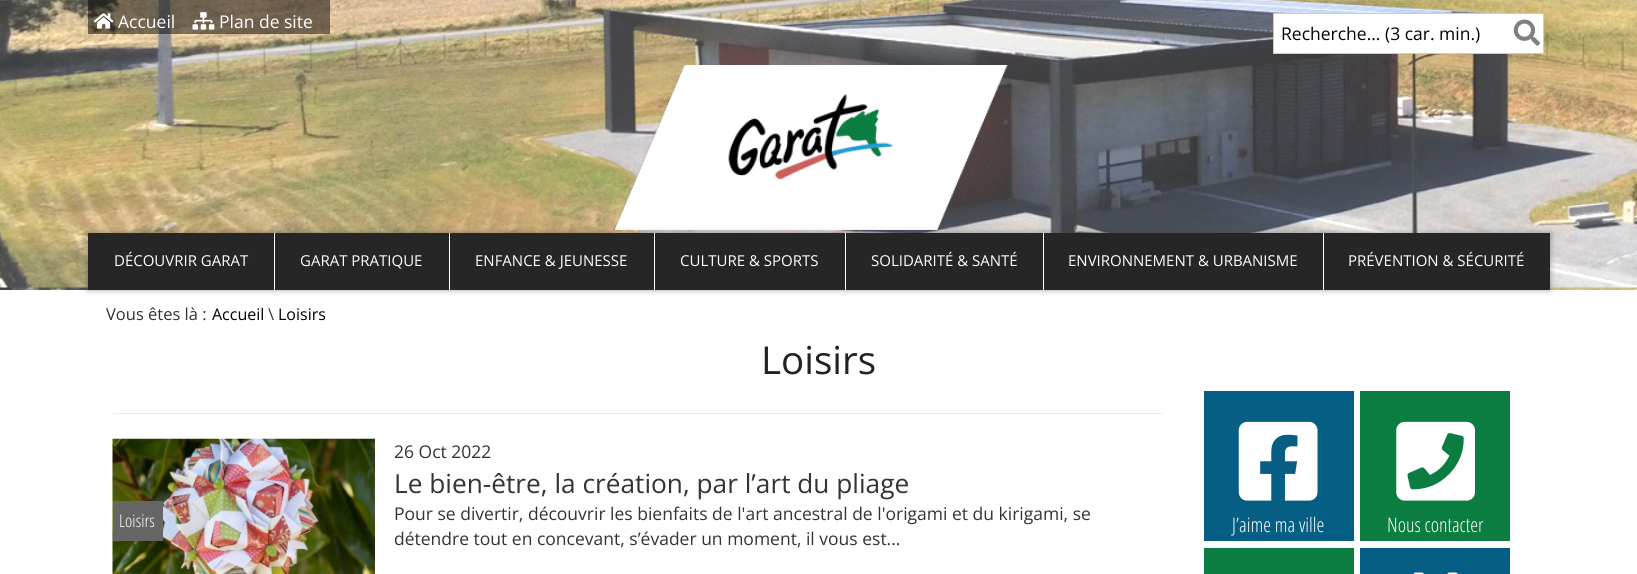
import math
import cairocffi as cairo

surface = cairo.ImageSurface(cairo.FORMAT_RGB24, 1637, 574)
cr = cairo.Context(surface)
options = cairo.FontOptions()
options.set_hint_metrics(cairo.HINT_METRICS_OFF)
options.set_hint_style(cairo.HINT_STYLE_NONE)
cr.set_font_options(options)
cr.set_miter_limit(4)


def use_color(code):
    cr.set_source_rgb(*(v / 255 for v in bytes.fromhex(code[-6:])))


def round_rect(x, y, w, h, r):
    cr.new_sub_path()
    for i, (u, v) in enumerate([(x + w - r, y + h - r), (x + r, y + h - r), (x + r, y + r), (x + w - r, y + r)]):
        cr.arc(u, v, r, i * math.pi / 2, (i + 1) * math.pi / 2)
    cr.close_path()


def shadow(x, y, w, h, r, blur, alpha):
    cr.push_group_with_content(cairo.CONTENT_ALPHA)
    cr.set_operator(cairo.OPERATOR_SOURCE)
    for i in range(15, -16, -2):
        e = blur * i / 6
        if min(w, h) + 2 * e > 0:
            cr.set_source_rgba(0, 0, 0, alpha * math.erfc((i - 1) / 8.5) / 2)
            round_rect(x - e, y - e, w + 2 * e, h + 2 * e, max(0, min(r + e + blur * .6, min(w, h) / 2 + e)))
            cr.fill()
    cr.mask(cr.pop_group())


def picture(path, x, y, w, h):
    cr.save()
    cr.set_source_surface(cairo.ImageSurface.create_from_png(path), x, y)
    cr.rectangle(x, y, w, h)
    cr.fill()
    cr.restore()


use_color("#ffffff")
cr.paint()
picture("img1.png", 0, 0, 1637, 290)
cr.set_source_rgba(0, 0, 0, 0.5)
cr.rectangle(88, 0, 242, 34)
cr.fill()
picture("img2.png", 93, 13, 21, 16)
cr.select_font_face("Open Sans")
cr.set_font_size(17.5)
use_color("#ffffff")
cr.move_to(118, 28)
cr.show_text("Accueil")
picture("img3.png", 192, 12, 23, 18)
cr.move_to(219, 28)
cr.show_text("Plan de site")
cr.rectangle(1273.5, 13.5, 270, 40)
cr.fill_preserve()
use_color("#cccccc")
cr.set_line_width(1)
cr.stroke()
use_color("#000000")
cr.move_to(1281, 40)
cr.show_text("Recherche... (3 car. min.)")
picture("img4.png", 1513, 19, 27, 27)
picture("img5.png", 613, 65, 395, 165)
use_color("#444444")
shadow(88, 233, 1462, 57, 0, 3, 0.5)
use_color("#262626")
cr.rectangle(88, 233, 1462, 57)
cr.fill()
cr.set_font_size(15)
use_color("#ffffff")
cr.move_to(114, 266)
cr.show_text("DÉCOUVRIR GARAT")
cr.rectangle(274, 233, 1, 57)
cr.fill()
cr.move_to(300, 266)
cr.show_text("GARAT PRATIQUE")
cr.rectangle(449, 233, 1, 57)
cr.fill()
cr.move_to(475, 266)
cr.show_text("ENFANCE & JEUNESSE")
cr.rectangle(654, 233, 1, 57)
cr.fill()
cr.move_to(680, 266)
cr.show_text("CULTURE & SPORTS")
cr.rectangle(845, 233, 1, 57)
cr.fill()
cr.move_to(871, 266)
cr.show_text("SOLIDARITÉ & SANTÉ")
cr.rectangle(1043, 233, 1, 57)
cr.fill()
cr.move_to(1068, 266)
cr.show_text("ENVIRONNEMENT & URBANISME")
cr.rectangle(1323, 233, 1, 57)
cr.fill()
cr.move_to(1348, 266)
cr.show_text("PRÉVENTION & SÉCURITÉ")
cr.set_font_size(16.5)
use_color("#333333")
cr.move_to(106, 320)
cr.show_text("Vous êtes là :")
cr.set_font_size(16)
use_color("#000000")
cr.move_to(212, 320)
cr.show_text("Accueil")
cr.set_font_size(16.5)
use_color("#333333")
cr.move_to(268, 320)
cr.show_text("\\")
cr.set_font_size(16)
use_color("#000000")
cr.move_to(278, 320)
cr.show_text("Loisirs")
cr.set_font_size(38.5)
use_color("#222222")
cr.move_to(761, 374)
cr.show_text("Loisirs")
use_color("#eeeeee")
cr.rectangle(113, 413, 1050, 1)
cr.fill()
picture("img6.png", 112, 438, 263, 136)
use_color("#666666")
cr.rectangle(113, 501, 50, 40)
cr.fill()
cr.select_font_face("Open Sans Condensed Light")
cr.set_font_size(17.5)
use_color("#ffffff")
cr.move_to(119, 527)
cr.show_text("Loisirs")
cr.select_font_face("Open Sans")
use_color("#333333")
cr.move_to(394, 458)
cr.show_text("26 Oct 2022")
cr.set_font_size(26.25)
cr.move_to(394, 493)
cr.show_text("Le bien-être, la création, par l’art du pliage")
cr.set_font_size(17.5)
cr.move_to(394, 520)
cr.show_text("Pour se divertir, découvrir les bienfaits de l'art ancestral de l'origami et du kirigami, se")
cr.move_to(394, 545)
cr.show_text("détendre tout en concevant, s’évader un moment, il vous est...")
use_color("#065e84")
cr.rectangle(1204, 391, 150, 150)
cr.fill()
picture("img7.png", 1238, 421, 80, 80)
cr.select_font_face("Open Sans Condensed Light")
cr.set_font_size(20)
use_color("#ffffff")
cr.move_to(1232, 532)
cr.show_text("J’aime ma ville")
use_color("#0b7d41")
cr.rectangle(1360, 391, 150, 150)
cr.fill()
picture("img8.png", 1396, 421, 79, 80)
use_color("#ffffff")
cr.move_to(1387, 532)
cr.show_text("Nous contacter")
use_color("#0b7d41")
cr.rectangle(1204, 548, 150, 26)
cr.fill()
use_color("#065e84")
cr.rectangle(1360, 548, 150, 26)
cr.fill()
picture("img9.png", 1413, 572, 45, 2)
surface.write_to_png("result.png")
